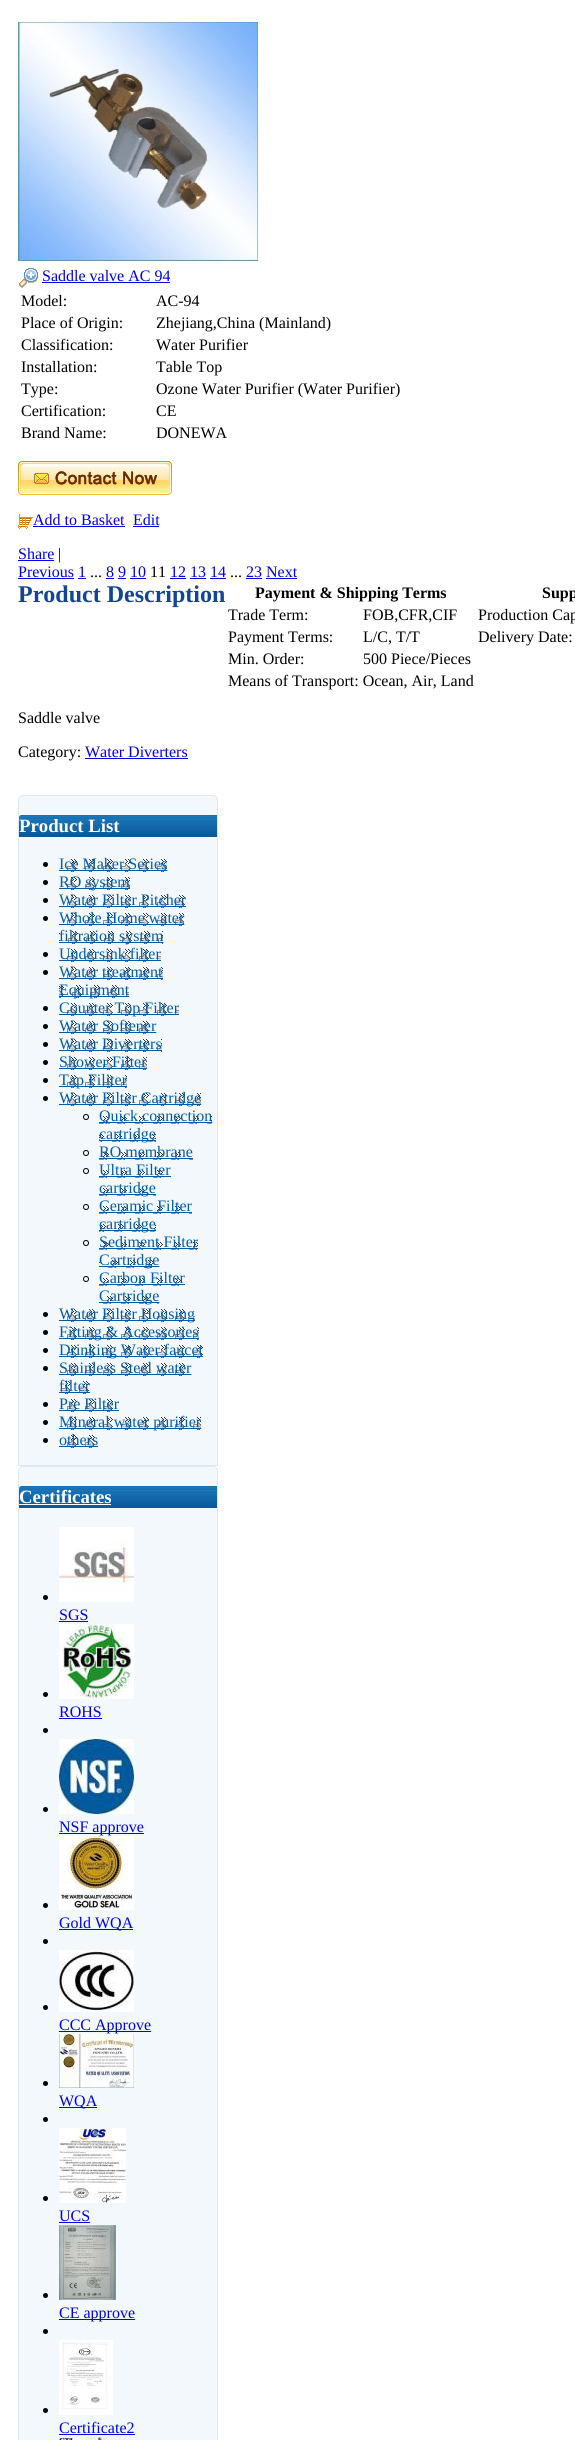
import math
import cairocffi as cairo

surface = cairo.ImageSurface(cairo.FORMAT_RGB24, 575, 2440)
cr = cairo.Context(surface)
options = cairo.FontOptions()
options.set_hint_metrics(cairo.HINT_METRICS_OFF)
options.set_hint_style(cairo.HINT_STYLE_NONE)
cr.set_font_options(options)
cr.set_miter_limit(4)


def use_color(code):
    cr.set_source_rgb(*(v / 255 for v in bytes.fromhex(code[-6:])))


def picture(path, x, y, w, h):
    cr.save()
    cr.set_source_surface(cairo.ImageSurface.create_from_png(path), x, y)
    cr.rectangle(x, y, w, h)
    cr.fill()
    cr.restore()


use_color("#ffffff")
cr.paint()
picture("img1.png", 18, 22, 240, 239)
picture("img2.png", 19, 268, 19, 20)
cr.select_font_face("Liberation Serif")
cr.set_font_size(16)
use_color("#0000ee")
cr.move_to(42, 281)
cr.show_text("Saddle valve AC 94")
cr.rectangle(42, 282, 128, 1)
cr.fill()
use_color("#000000")
cr.move_to(21, 306)
cr.show_text("Model:")
cr.move_to(156, 306)
cr.show_text("AC-94")
cr.move_to(21, 328)
cr.show_text("Place of Origin:")
cr.move_to(156, 328)
cr.show_text("Zhejiang,China (Mainland)")
cr.move_to(21, 350)
cr.show_text("Classification:")
cr.move_to(156, 350)
cr.show_text("Water Purifier")
cr.move_to(21, 372)
cr.show_text("Installation:")
cr.move_to(156, 372)
cr.show_text("Table Top")
cr.move_to(21, 394)
cr.show_text("Type:")
cr.move_to(156, 394)
cr.show_text("Ozone Water Purifier (Water Purifier)")
cr.move_to(21, 416)
cr.show_text("Certification:")
cr.move_to(156, 416)
cr.show_text("CE")
cr.move_to(21, 438)
cr.show_text("Brand Name:")
cr.move_to(156, 438)
cr.show_text("DONEWA")
picture("img3.png", 18, 461, 154, 34)
picture("img4.png", 18, 514, 15, 15)
use_color("#0000ee")
cr.move_to(33, 525)
cr.show_text("Add to Basket")
cr.rectangle(33, 526, 92, 1)
cr.fill()
cr.move_to(133, 525)
cr.show_text("Edit")
cr.rectangle(133, 526, 26, 1)
cr.fill()
cr.move_to(18, 559)
cr.show_text("Share")
cr.rectangle(18, 560, 36, 1)
cr.fill()
use_color("#000000")
cr.move_to(58, 559)
cr.show_text("|")
use_color("#0000ee")
cr.move_to(18, 577)
cr.show_text("Previous 1")
cr.rectangle(18, 578, 56, 1)
cr.fill()
use_color("#000000")
cr.move_to(90, 577)
cr.show_text("...")
use_color("#0000ee")
cr.move_to(106, 577)
cr.show_text("8 9 10")
cr.rectangle(106, 578, 8, 1)
cr.fill()
use_color("#000000")
cr.move_to(150, 577)
cr.show_text("11")
use_color("#0000ee")
cr.move_to(170, 577)
cr.show_text("12 13 14")
cr.rectangle(170, 578, 16, 1)
cr.fill()
use_color("#000000")
cr.move_to(230, 577)
cr.show_text("...")
use_color("#0000ee")
cr.move_to(246, 577)
cr.show_text("23 Next")
cr.rectangle(246, 578, 16, 1)
cr.fill()
cr.rectangle(78, 578, 8, 1)
cr.fill()
cr.rectangle(118, 578, 8, 1)
cr.fill()
cr.rectangle(130, 578, 16, 1)
cr.fill()
cr.rectangle(190, 578, 16, 1)
cr.fill()
cr.rectangle(210, 578, 16, 1)
cr.fill()
cr.rectangle(266, 578, 31, 1)
cr.fill()
cr.select_font_face("Liberation Serif", cairo.FONT_SLANT_NORMAL, cairo.FONT_WEIGHT_BOLD)
cr.set_font_size(24)
use_color("#134597")
cr.move_to(18, 602)
cr.show_text("Product Description")
cr.set_font_size(16)
use_color("#000000")
cr.move_to(255, 598)
cr.show_text("Payment & Shipping Terms")
cr.move_to(542, 598)
cr.show_text("Supp")
cr.select_font_face("Liberation Serif")
cr.move_to(228, 620)
cr.show_text("Trade Term:")
cr.move_to(363, 620)
cr.show_text("FOB,CFR,CIF")
cr.move_to(478, 620)
cr.show_text("Production Cap")
cr.move_to(228, 642)
cr.show_text("Payment Terms:")
cr.move_to(363, 642)
cr.show_text("L/C, T/T")
cr.move_to(478, 642)
cr.show_text("Delivery Date:")
cr.move_to(228, 664)
cr.show_text("Min. Order:")
cr.move_to(363, 664)
cr.show_text("500 Piece/Pieces")
cr.move_to(228, 686)
cr.show_text("Means of Transport: Ocean, Air, Land")
cr.move_to(18, 723)
cr.show_text("Saddle valve")
cr.move_to(18, 757)
cr.show_text("Category:")
use_color("#0000ee")
cr.move_to(85, 757)
cr.show_text("Water Diverters")
cr.rectangle(85, 758, 103, 1)
cr.fill()
use_color("#f3f8fd")
cr.new_path()
cr.move_to(23, 795.5)
cr.line_to(213, 795.5)
cr.curve_to(215.5, 795.5, 217.5, 797.5, 217.5, 800)
cr.line_to(217.5, 1465.5)
cr.line_to(18.5, 1465.5)
cr.line_to(18.5, 800)
cr.curve_to(18.5, 797.5, 20.5, 795.5, 23, 795.5)
cr.close_path()
cr.fill_preserve()
use_color("#dde9f2")
cr.set_line_width(1)
cr.stroke()
picture("img5.png", 19, 815, 198, 22)
cr.select_font_face("Liberation Serif", cairo.FONT_SLANT_NORMAL, cairo.FONT_WEIGHT_BOLD)
cr.set_font_size(18.75)
use_color("#ffffff")
cr.move_to(19, 832)
cr.show_text("Product List")
picture("img6.png", 59, 859, 109, 13)
cr.select_font_face("Liberation Serif")
cr.set_font_size(16)
use_color("#005caa")
cr.move_to(59, 869)
cr.show_text("Ice Maker Series")
use_color("#000000")
cr.new_path()
cr.arc(45.5, 864.5, 2.5, 0, 2 * math.pi)
cr.fill()
picture("img7.png", 67, 877, 63, 13)
use_color("#005caa")
cr.rectangle(59, 888, 71, 1)
cr.fill()
cr.move_to(59, 887)
cr.show_text("RO system")
use_color("#000000")
cr.new_path()
cr.arc(45.5, 882.5, 2.5, 0, 2 * math.pi)
cr.fill()
picture("img8.png", 59, 895, 128, 13)
use_color("#005caa")
cr.move_to(59, 905)
cr.show_text("Water Filter Pitcher")
use_color("#000000")
cr.new_path()
cr.arc(45.5, 900.5, 2.5, 0, 2 * math.pi)
cr.fill()
picture("img9.png", 59, 913, 126, 31)
use_color("#005caa")
cr.move_to(59, 923)
cr.show_text("Whole Home water")
use_color("#000000")
cr.new_path()
cr.arc(45.5, 918.5, 2.5, 0, 2 * math.pi)
cr.fill()
use_color("#005caa")
cr.rectangle(124, 942, 7, 1)
cr.fill()
cr.move_to(59, 941)
cr.show_text("filtration system")
picture("img10.png", 67, 949, 94, 13)
cr.move_to(59, 959)
cr.show_text("Undersink filter")
cr.rectangle(59, 960, 102, 1)
cr.fill()
use_color("#000000")
cr.arc(45.5, 954.5, 2.5, 0, 2 * math.pi)
cr.fill()
picture("img11.png", 59, 967, 104, 31)
use_color("#005caa")
cr.move_to(59, 977)
cr.show_text("Water treatment")
cr.rectangle(162, 978, 1, 1)
cr.fill()
use_color("#000000")
cr.arc(45.5, 972.5, 2.5, 0, 2 * math.pi)
cr.fill()
use_color("#005caa")
cr.rectangle(73, 996, 20, 1)
cr.fill()
cr.move_to(59, 995)
cr.show_text("Equipment")
picture("img12.png", 67, 1003, 112, 13)
cr.rectangle(59, 1014, 77, 1)
cr.fill()
cr.move_to(59, 1013)
cr.show_text("Counter Top Filter")
use_color("#000000")
cr.new_path()
cr.arc(45.5, 1008.5, 2.5, 0, 2 * math.pi)
cr.fill()
picture("img13.png", 59, 1021, 98, 13)
use_color("#005caa")
cr.move_to(59, 1031)
cr.show_text("Water Softener")
use_color("#000000")
cr.new_path()
cr.arc(45.5, 1026.5, 2.5, 0, 2 * math.pi)
cr.fill()
picture("img14.png", 67, 1039, 95, 13)
use_color("#005caa")
cr.move_to(59, 1049)
cr.show_text("Water Diverters")
cr.rectangle(59, 1050, 103, 1)
cr.fill()
use_color("#000000")
cr.arc(45.5, 1044.5, 2.5, 0, 2 * math.pi)
cr.fill()
picture("img15.png", 67, 1057, 80, 13)
use_color("#005caa")
cr.move_to(59, 1067)
cr.show_text("Shower Filter")
cr.rectangle(59, 1068, 88, 1)
cr.fill()
use_color("#000000")
cr.arc(45.5, 1062.5, 2.5, 0, 2 * math.pi)
cr.fill()
picture("img16.png", 67, 1075, 60, 13)
use_color("#005caa")
cr.rectangle(59, 1086, 68, 1)
cr.fill()
cr.move_to(59, 1085)
cr.show_text("Tap Filiter")
use_color("#000000")
cr.new_path()
cr.arc(45.5, 1080.5, 2.5, 0, 2 * math.pi)
cr.fill()
picture("img17.png", 67, 1093, 135, 13)
use_color("#005caa")
cr.rectangle(59, 1104, 142, 1)
cr.fill()
cr.move_to(59, 1103)
cr.show_text("Water Filter Cartridge")
use_color("#000000")
cr.new_path()
cr.arc(45.5, 1098.5, 2.5, 0, 2 * math.pi)
cr.fill()
cr.arc(86, 1117, 2.5, 0, 2 * math.pi)
cr.stroke()
picture("img18.png", 99, 1116, 114, 26)
use_color("#005caa")
cr.rectangle(99, 1122, 13, 1)
cr.fill()
cr.move_to(99, 1121)
cr.show_text("Quick connection")
cr.rectangle(140, 1140, 16, 1)
cr.fill()
cr.move_to(99, 1139)
cr.show_text("cartridge")
cr.new_path()
cr.arc(86, 1153, 2.5, 0, 2 * math.pi)
use_color("#000000")
cr.stroke()
picture("img19.png", 99, 1152, 94, 8)
use_color("#005caa")
cr.move_to(99, 1157)
cr.show_text("RO membrane")
cr.rectangle(192, 1158, 1, 1)
cr.fill()
cr.arc(86, 1171, 2.5, 0, 2 * math.pi)
use_color("#000000")
cr.stroke()
picture("img20.png", 99, 1170, 64, 26)
use_color("#005caa")
cr.move_to(99, 1175)
cr.show_text("Ultra Filter")
cr.rectangle(163, 1176, 8, 1)
cr.fill()
cr.rectangle(140, 1194, 16, 1)
cr.fill()
cr.move_to(99, 1193)
cr.show_text("cartridge")
cr.new_path()
cr.arc(86, 1207, 2.5, 0, 2 * math.pi)
use_color("#000000")
cr.stroke()
picture("img21.png", 99, 1206, 93, 26)
use_color("#005caa")
cr.move_to(99, 1211)
cr.show_text("Ceramic Filter")
cr.rectangle(191, 1212, 1, 1)
cr.fill()
cr.rectangle(140, 1230, 16, 1)
cr.fill()
cr.move_to(99, 1229)
cr.show_text("cartridge")
cr.new_path()
cr.arc(86, 1243, 2.5, 0, 2 * math.pi)
use_color("#000000")
cr.stroke()
picture("img22.png", 99, 1242, 100, 26)
use_color("#005caa")
cr.move_to(99, 1247)
cr.show_text("Sediment Filter")
cr.rectangle(143, 1266, 16, 1)
cr.fill()
cr.move_to(99, 1265)
cr.show_text("Cartridge")
cr.new_path()
cr.arc(86, 1279, 2.5, 0, 2 * math.pi)
use_color("#000000")
cr.stroke()
picture("img23.png", 99, 1278, 82, 26)
use_color("#005caa")
cr.move_to(99, 1283)
cr.show_text("Carbon Filter")
cr.rectangle(181, 1284, 4, 1)
cr.fill()
cr.rectangle(143, 1302, 16, 1)
cr.fill()
cr.move_to(99, 1301)
cr.show_text("Cartridge")
picture("img24.png", 67, 1309, 128, 13)
cr.rectangle(59, 1320, 136, 1)
cr.fill()
cr.move_to(59, 1319)
cr.show_text("Water Filter Housing")
use_color("#000000")
cr.new_path()
cr.arc(45.5, 1314.5, 2.5, 0, 2 * math.pi)
cr.fill()
picture("img25.png", 67, 1327, 132, 13)
use_color("#005caa")
cr.rectangle(59, 1338, 140, 1)
cr.fill()
cr.move_to(59, 1337)
cr.show_text("Fitting & Accessories")
use_color("#000000")
cr.new_path()
cr.arc(45.5, 1332.5, 2.5, 0, 2 * math.pi)
cr.fill()
picture("img26.png", 67, 1345, 136, 13)
use_color("#005caa")
cr.rectangle(59, 1356, 144, 1)
cr.fill()
cr.move_to(59, 1355)
cr.show_text("Drinking Water faucet")
use_color("#000000")
cr.new_path()
cr.arc(45.5, 1350.5, 2.5, 0, 2 * math.pi)
cr.fill()
picture("img27.png", 59, 1363, 133, 31)
use_color("#005caa")
cr.move_to(59, 1373)
cr.show_text("Stainless Steel water")
use_color("#000000")
cr.new_path()
cr.arc(45.5, 1368.5, 2.5, 0, 2 * math.pi)
cr.fill()
use_color("#005caa")
cr.move_to(59, 1391)
cr.show_text("filter")
picture("img28.png", 59, 1399, 60, 13)
cr.move_to(59, 1409)
cr.show_text("Pre Filter")
use_color("#000000")
cr.new_path()
cr.arc(45.5, 1404.5, 2.5, 0, 2 * math.pi)
cr.fill()
picture("img29.png", 67, 1417, 135, 13)
use_color("#005caa")
cr.rectangle(59, 1428, 98, 1)
cr.fill()
cr.move_to(59, 1427)
cr.show_text("Mineral water purifier")
use_color("#000000")
cr.new_path()
cr.arc(45.5, 1422.5, 2.5, 0, 2 * math.pi)
cr.fill()
picture("img30.png", 59, 1435, 40, 13)
use_color("#005caa")
cr.move_to(59, 1445)
cr.show_text("others")
use_color("#000000")
cr.new_path()
cr.arc(45.5, 1440.5, 2.5, 0, 2 * math.pi)
cr.fill()
use_color("#f3f8fd")
cr.new_path()
cr.move_to(23, 1466.5)
cr.line_to(213, 1466.5)
cr.curve_to(215.5, 1466.5, 217.5, 1468.5, 217.5, 1471)
cr.line_to(217.5, 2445.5)
cr.line_to(18.5, 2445.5)
cr.line_to(18.5, 1471)
cr.curve_to(18.5, 1468.5, 20.5, 1466.5, 23, 1466.5)
cr.close_path()
cr.fill_preserve()
use_color("#dde9f2")
cr.stroke()
picture("img5.png", 19, 1486, 198, 22)
cr.select_font_face("Liberation Serif", cairo.FONT_SLANT_NORMAL, cairo.FONT_WEIGHT_BOLD)
cr.set_font_size(18.75)
use_color("#ffffff")
cr.move_to(19, 1503)
cr.show_text("Certificates")
cr.rectangle(19, 1504, 92, 1)
cr.fill()
use_color("#000000")
cr.arc(45.5, 1597.5, 2.5, 0, 2 * math.pi)
cr.fill()
picture("img31.png", 59, 1527, 75, 75)
cr.select_font_face("Liberation Serif")
cr.set_font_size(16)
use_color("#0000ee")
cr.move_to(59, 1620)
cr.show_text("SGS")
cr.rectangle(59, 1621, 29, 1)
cr.fill()
use_color("#000000")
cr.arc(45.5, 1694.5, 2.5, 0, 2 * math.pi)
cr.fill()
picture("img32.png", 59, 1624, 75, 75)
use_color("#0000ee")
cr.move_to(59, 1717)
cr.show_text("ROHS")
cr.rectangle(59, 1718, 43, 1)
cr.fill()
use_color("#000000")
cr.arc(45.5, 1730.5, 2.5, 0, 2 * math.pi)
cr.fill()
cr.arc(45.5, 1809.5, 2.5, 0, 2 * math.pi)
cr.fill()
picture("img33.png", 59, 1739, 75, 75)
use_color("#0000ee")
cr.rectangle(59, 1833, 85, 1)
cr.fill()
cr.move_to(59, 1832)
cr.show_text("NSF approve")
use_color("#000000")
cr.new_path()
cr.arc(45.5, 1905.5, 2.5, 0, 2 * math.pi)
cr.fill()
picture("img34.png", 59, 1836, 75, 74)
use_color("#0000ee")
cr.rectangle(59, 1929, 74, 1)
cr.fill()
cr.move_to(59, 1928)
cr.show_text("Gold WQA")
use_color("#000000")
cr.new_path()
cr.arc(45.5, 1941.5, 2.5, 0, 2 * math.pi)
cr.fill()
cr.arc(45.5, 2007.5, 2.5, 0, 2 * math.pi)
cr.fill()
picture("img35.png", 59, 1950, 75, 62)
use_color("#0000ee")
cr.rectangle(59, 2031, 92, 1)
cr.fill()
cr.move_to(59, 2030)
cr.show_text("CCC Approve")
use_color("#000000")
cr.new_path()
cr.arc(45.5, 2083.5, 2.5, 0, 2 * math.pi)
cr.fill()
picture("img36.png", 59, 2034, 75, 54)
use_color("#0000ee")
cr.rectangle(59, 2107, 38, 1)
cr.fill()
cr.move_to(59, 2106)
cr.show_text("WQA")
use_color("#000000")
cr.new_path()
cr.arc(45.5, 2119.5, 2.5, 0, 2 * math.pi)
cr.fill()
cr.arc(45.5, 2198.5, 2.5, 0, 2 * math.pi)
cr.fill()
picture("img37.png", 59, 2128, 67, 75)
use_color("#0000ee")
cr.move_to(59, 2221)
cr.show_text("UCS")
cr.rectangle(59, 2222, 31, 1)
cr.fill()
use_color("#000000")
cr.arc(45.5, 2295.5, 2.5, 0, 2 * math.pi)
cr.fill()
picture("img38.png", 59, 2225, 57, 75)
use_color("#0000ee")
cr.rectangle(59, 2319, 76, 1)
cr.fill()
cr.move_to(59, 2318)
cr.show_text("CE approve")
use_color("#000000")
cr.new_path()
cr.arc(45.5, 2331.5, 2.5, 0, 2 * math.pi)
cr.fill()
cr.arc(45.5, 2410.5, 2.5, 0, 2 * math.pi)
cr.fill()
picture("img39.png", 59, 2340, 54, 75)
use_color("#0000ee")
cr.move_to(59, 2433)
cr.show_text("Certificate2")
cr.rectangle(59, 2434, 76, 1)
cr.fill()
picture("img40.png", 59, 2437, 48, 3)
surface.write_to_png("result.png")
